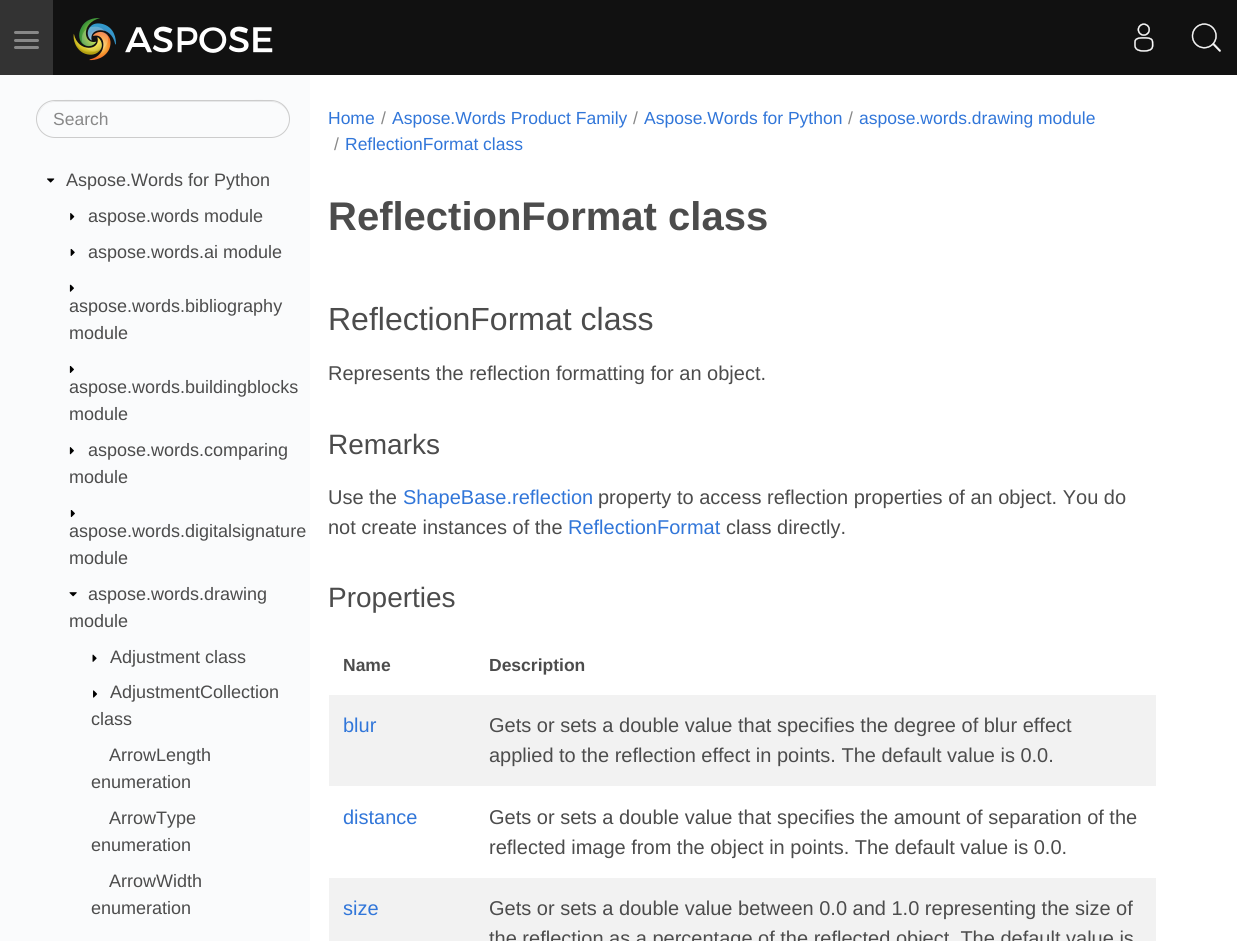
import math
import cairocffi as cairo

surface = cairo.ImageSurface(cairo.FORMAT_RGB24, 1237, 941)
cr = cairo.Context(surface)
options = cairo.FontOptions()
options.set_hint_metrics(cairo.HINT_METRICS_OFF)
options.set_hint_style(cairo.HINT_STYLE_NONE)
cr.set_font_options(options)
cr.set_miter_limit(4)


def use_color(code):
    cr.set_source_rgb(*(v / 255 for v in bytes.fromhex(code[-6:])))


def round_rect(x, y, w, h, r):
    cr.new_sub_path()
    for i, (u, v) in enumerate([(x + w - r, y + h - r), (x + r, y + h - r), (x + r, y + r), (x + w - r, y + r)]):
        cr.arc(u, v, r, i * math.pi / 2, (i + 1) * math.pi / 2)
    cr.close_path()


def picture(path, x, y, w, h):
    cr.save()
    cr.set_source_surface(cairo.ImageSurface.create_from_png(path), x, y)
    cr.rectangle(x, y, w, h)
    cr.fill()
    cr.restore()


use_color("#ffffff")
cr.paint()
use_color("#111111")
cr.rectangle(53, 0, 1184, 75)
cr.fill()
use_color("#333333")
cr.rectangle(0, 0, 53, 75)
cr.fill()
use_color("#888888")
round_rect(14, 31, 25, 3, 1.5)
cr.fill()
round_rect(14, 39, 25, 3, 1.5)
cr.fill()
round_rect(14, 46, 25, 3, 1.5)
cr.fill()
picture("img1.png", 73, 18, 200, 43)
picture("img2.png", 1134, 23, 20, 29)
picture("img3.png", 1191, 23, 30, 29)
use_color("#fafbfc")
cr.rectangle(0, 75, 310, 866)
cr.fill()
use_color("#e7e8e9")
cr.new_path()
cr.move_to(55, 102)
cr.line_to(271, 102)
cr.curve_to(281, 102, 289, 110, 289, 119)
cr.curve_to(290, 93, 247, 101, 236, 101)
cr.line_to(92, 101)
cr.curve_to(80, 101, 37, 93, 38, 119)
cr.curve_to(38, 110, 45, 102, 55, 102)
cr.close_path()
cr.fill()
round_rect(36.5, 100.5, 253, 37, 18.5)
use_color("#cccccc")
cr.set_line_width(1)
cr.stroke()
cr.select_font_face("Liberation Sans")
cr.set_font_size(17.5)
use_color("#888888")
cr.move_to(53, 125)
cr.show_text("Search")
picture("img4.png", 47, 178, 8, 5)
cr.set_font_size(18)
use_color("#4c4c4c")
cr.move_to(66, 186)
cr.show_text("Aspose.Words for Python")
picture("img5.png", 70, 213, 5, 8)
cr.move_to(88, 222)
cr.show_text("aspose.words module")
picture("img6.png", 70, 248, 5, 8)
cr.move_to(88, 258)
cr.show_text("aspose.words.ai module")
picture("img7.png", 69, 284, 5, 8)
cr.move_to(69, 312)
cr.show_text("aspose.words.bibliography")
cr.move_to(69, 339)
cr.show_text("module")
picture("img8.png", 69, 365, 5, 8)
cr.move_to(69, 393)
cr.show_text("aspose.words.buildingblocks")
cr.move_to(69, 420)
cr.show_text("module")
picture("img9.png", 69, 447, 5, 8)
cr.move_to(88, 456)
cr.show_text("aspose.words.comparing")
cr.move_to(69, 483)
cr.show_text("module")
picture("img10.png", 70, 510, 5, 8)
cr.move_to(69, 537)
cr.show_text("aspose.words.digitalsignature")
cr.move_to(69, 564)
cr.show_text("module")
picture("img11.png", 69, 592, 8, 5)
cr.move_to(88, 600)
cr.show_text("aspose.words.drawing")
cr.move_to(69, 627)
cr.show_text("module")
picture("img12.png", 92, 654, 5, 8)
cr.move_to(110, 663)
cr.show_text("Adjustment class")
picture("img13.png", 93, 690, 5, 8)
cr.move_to(110, 698)
cr.show_text("AdjustmentCollection")
cr.move_to(91, 725)
cr.show_text("class")
cr.move_to(109, 761)
cr.show_text("ArrowLength")
cr.move_to(91, 788)
cr.show_text("enumeration")
cr.move_to(109, 824)
cr.show_text("ArrowType")
cr.move_to(91, 851)
cr.show_text("enumeration")
cr.move_to(109, 887)
cr.show_text("ArrowWidth")
cr.move_to(91, 914)
cr.show_text("enumeration")
cr.set_font_size(17.5)
use_color("#3176d9")
cr.move_to(328, 124)
cr.show_text("Home")
use_color("#888888")
cr.move_to(381, 124)
cr.show_text("/")
use_color("#3176d9")
cr.move_to(392, 124)
cr.show_text("Aspose.Words Product Family")
use_color("#888888")
cr.move_to(633, 124)
cr.show_text("/")
use_color("#3176d9")
cr.move_to(644, 124)
cr.show_text("Aspose.Words for Python")
use_color("#888888")
cr.move_to(848, 124)
cr.show_text("/")
use_color("#3176d9")
cr.move_to(859, 124)
cr.show_text("aspose.words.drawing module")
use_color("#888888")
cr.move_to(334, 150)
cr.show_text("/")
use_color("#3176d9")
cr.move_to(345, 150)
cr.show_text("ReflectionFormat class")
cr.select_font_face("Liberation Sans", cairo.FONT_SLANT_NORMAL, cairo.FONT_WEIGHT_BOLD)
cr.set_font_size(40)
use_color("#4c4c4c")
cr.move_to(328, 230)
cr.show_text("ReflectionFormat class")
cr.select_font_face("Liberation Sans")
cr.set_font_size(32)
cr.move_to(328, 330)
cr.show_text("ReflectionFormat class")
cr.set_font_size(20)
cr.move_to(328, 380)
cr.show_text("Represents the reflection formatting for an object.")
cr.set_font_size(28)
cr.move_to(328, 454)
cr.show_text("Remarks")
cr.set_font_size(20)
cr.move_to(328, 504)
cr.show_text("Use the")
use_color("#3176d9")
cr.move_to(403, 504)
cr.show_text("ShapeBase.reflection")
use_color("#4c4c4c")
cr.move_to(598, 504)
cr.show_text("property to access reflection properties of an object. You do")
cr.move_to(328, 534)
cr.show_text("not create instances of the")
use_color("#3176d9")
cr.move_to(568, 534)
cr.show_text("ReflectionFormat")
use_color("#4c4c4c")
cr.move_to(726, 534)
cr.show_text("class directly.")
cr.set_font_size(28)
cr.move_to(328, 607)
cr.show_text("Properties")
cr.select_font_face("Liberation Sans", cairo.FONT_SLANT_NORMAL, cairo.FONT_WEIGHT_BOLD)
cr.set_font_size(17.5)
cr.move_to(343, 671)
cr.show_text("Name")
cr.move_to(489, 671)
cr.show_text("Description")
use_color("#f2f2f2")
cr.rectangle(329, 695, 827, 91)
cr.fill()
cr.select_font_face("Liberation Sans")
cr.set_font_size(20)
use_color("#3176d9")
cr.move_to(343, 732)
cr.show_text("blur")
use_color("#4c4c4c")
cr.move_to(489, 732)
cr.show_text("Gets or sets a double value that specifies the degree of blur effect")
cr.move_to(489, 762)
cr.show_text("applied to the reflection effect in points. The default value is 0.0.")
use_color("#3176d9")
cr.move_to(343, 824)
cr.show_text("distance")
use_color("#4c4c4c")
cr.move_to(489, 824)
cr.show_text("Gets or sets a double value that specifies the amount of separation of the")
cr.move_to(489, 854)
cr.show_text("reflected image from the object in points. The default value is 0.0.")
use_color("#f2f2f2")
cr.rectangle(329, 878, 827, 63)
cr.fill()
use_color("#3176d9")
cr.move_to(343, 915)
cr.show_text("size")
use_color("#4c4c4c")
cr.move_to(489, 915)
cr.show_text("Gets or sets a double value between 0.0 and 1.0 representing the size of")
cr.move_to(489, 945)
cr.show_text("the reflection as a percentage of the reflected object. The default value is")
surface.write_to_png("result.png")
